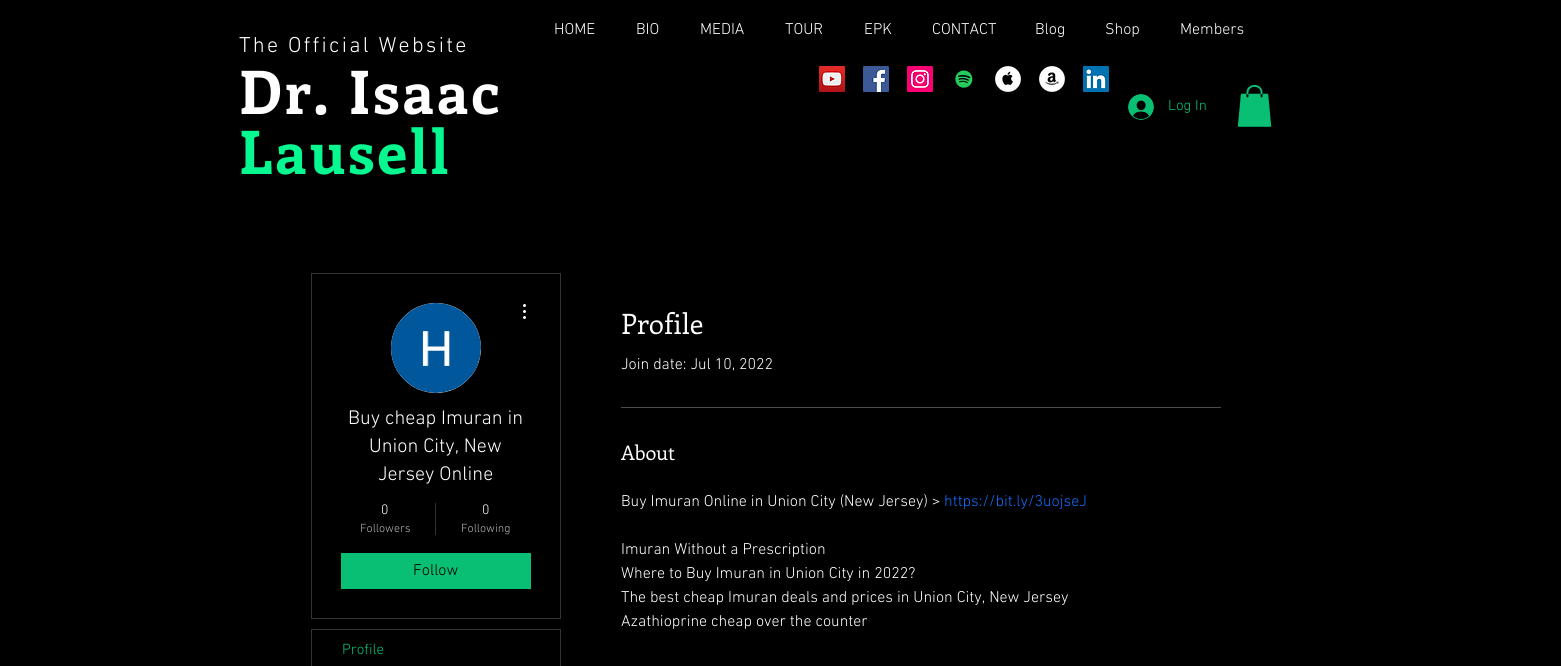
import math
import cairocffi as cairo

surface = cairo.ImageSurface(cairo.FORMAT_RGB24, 1561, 666)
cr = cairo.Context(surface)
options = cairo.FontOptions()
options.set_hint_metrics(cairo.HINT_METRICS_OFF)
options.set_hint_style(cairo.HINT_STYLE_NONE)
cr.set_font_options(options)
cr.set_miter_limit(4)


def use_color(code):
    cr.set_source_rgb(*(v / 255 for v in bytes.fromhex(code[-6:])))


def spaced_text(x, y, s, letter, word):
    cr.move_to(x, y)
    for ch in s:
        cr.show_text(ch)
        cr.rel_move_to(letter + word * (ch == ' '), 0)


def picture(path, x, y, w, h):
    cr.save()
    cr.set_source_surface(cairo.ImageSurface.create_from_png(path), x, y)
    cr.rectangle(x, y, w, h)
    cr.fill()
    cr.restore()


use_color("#000000")
cr.paint()
cr.select_font_face("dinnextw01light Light")
cr.set_font_size(16)
use_color("#ffffff")
cr.move_to(554, 34)
cr.show_text("HOME")
cr.move_to(636, 34)
cr.show_text("BIO")
cr.move_to(700, 34)
cr.show_text("MEDIA")
cr.move_to(785, 34)
cr.show_text("TOUR")
cr.move_to(864, 34)
cr.show_text("EPK")
cr.move_to(932, 34)
cr.show_text("CONTACT")
cr.move_to(1035, 34)
cr.show_text("Blog")
cr.move_to(1105, 34)
cr.show_text("Shop")
cr.move_to(1180, 34)
cr.show_text("Members")
cr.set_font_size(22)
spaced_text(239, 52, "The Official Website", 2.25, 0)
cr.select_font_face("Enriqueta", cairo.FONT_SLANT_NORMAL, cairo.FONT_WEIGHT_BOLD)
cr.set_font_size(60)
spaced_text(239, 114, "Dr. Isaac", 3, 0)
use_color("#07f791")
spaced_text(239, 174, "Lausell", 3, 0)
picture("img1.png", 819, 66, 26, 26)
picture("img2.png", 863, 66, 26, 26)
picture("img3.png", 907, 66, 26, 26)
picture("img4.png", 955, 70, 18, 18)
picture("img5.png", 995, 66, 26, 26)
picture("img6.png", 1039, 66, 26, 26)
picture("img7.png", 1083, 66, 26, 26)
picture("img8.png", 1128, 94, 26, 26)
cr.select_font_face("dinnextw01light Light")
cr.set_font_size(15)
use_color("#08bf73")
cr.move_to(1168, 110)
cr.show_text("Log In")
picture("img9.png", 1237, 85, 35, 42)
cr.rectangle(311.5, 273.5, 249, 345)
use_color("#333333")
cr.set_line_width(1)
cr.stroke()
use_color("#d8d8d8")
cr.arc(436, 348, 45, 0, 2 * math.pi)
cr.fill()
picture("img10.png", 391, 303, 90, 90)
picture("img11.png", 523, 304, 3, 15)
cr.set_font_size(20)
use_color("#ffffff")
cr.move_to(348, 424)
cr.show_text("Buy cheap Imuran in")
cr.move_to(369, 452)
cr.show_text("Union City, New")
cr.move_to(378, 480)
cr.show_text("Jersey Online")
cr.set_font_size(14)
cr.move_to(381, 514)
cr.show_text("0")
cr.set_font_size(12)
use_color("#b3b3b3")
cr.move_to(360, 532)
cr.show_text("Followers")
use_color("#333333")
cr.rectangle(435, 503, 1, 32)
cr.fill()
cr.set_font_size(14)
use_color("#ffffff")
cr.move_to(482, 514)
cr.show_text("0")
cr.set_font_size(12)
use_color("#b3b3b3")
cr.move_to(461, 532)
cr.show_text("Following")
use_color("#08bf73")
cr.rectangle(341, 553, 190, 36)
cr.fill()
cr.set_font_size(16)
use_color("#000000")
cr.move_to(413, 575)
cr.show_text("Follow")
cr.rectangle(311.5, 629.5, 249, 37)
use_color("#333333")
cr.stroke()
cr.set_font_size(15)
use_color("#08bf73")
cr.move_to(342, 654)
cr.show_text("Profile")
cr.select_font_face("Enriqueta")
cr.set_font_size(28)
use_color("#ffffff")
cr.move_to(621, 334)
cr.show_text("Profile")
cr.select_font_face("dinnextw01light Light")
cr.set_font_size(16)
cr.move_to(621, 369)
cr.show_text("Join date: Jul 10, 2022")
use_color("#4d4d4d")
cr.rectangle(621, 407, 600, 1)
cr.fill()
cr.select_font_face("Enriqueta")
cr.set_font_size(20)
use_color("#ffffff")
cr.move_to(621, 460)
cr.show_text("About")
cr.select_font_face("dinnextw01light Light")
cr.set_font_size(16)
cr.move_to(621, 506)
cr.show_text("Buy Imuran Online in Union City (New Jersey) >")
use_color("#116dff")
cr.move_to(944, 506)
cr.show_text("https://bit.ly/3uojseJ")
use_color("#ffffff")
cr.move_to(621, 554)
cr.show_text("Imuran Without a Prescription")
cr.move_to(621, 578)
cr.show_text("Where to Buy Imuran in Union City in 2022?")
cr.move_to(621, 602)
cr.show_text("The best cheap Imuran deals and prices in Union City, New Jersey")
cr.move_to(621, 626)
cr.show_text("Azathioprine cheap over the counter")
surface.write_to_png("result.png")
